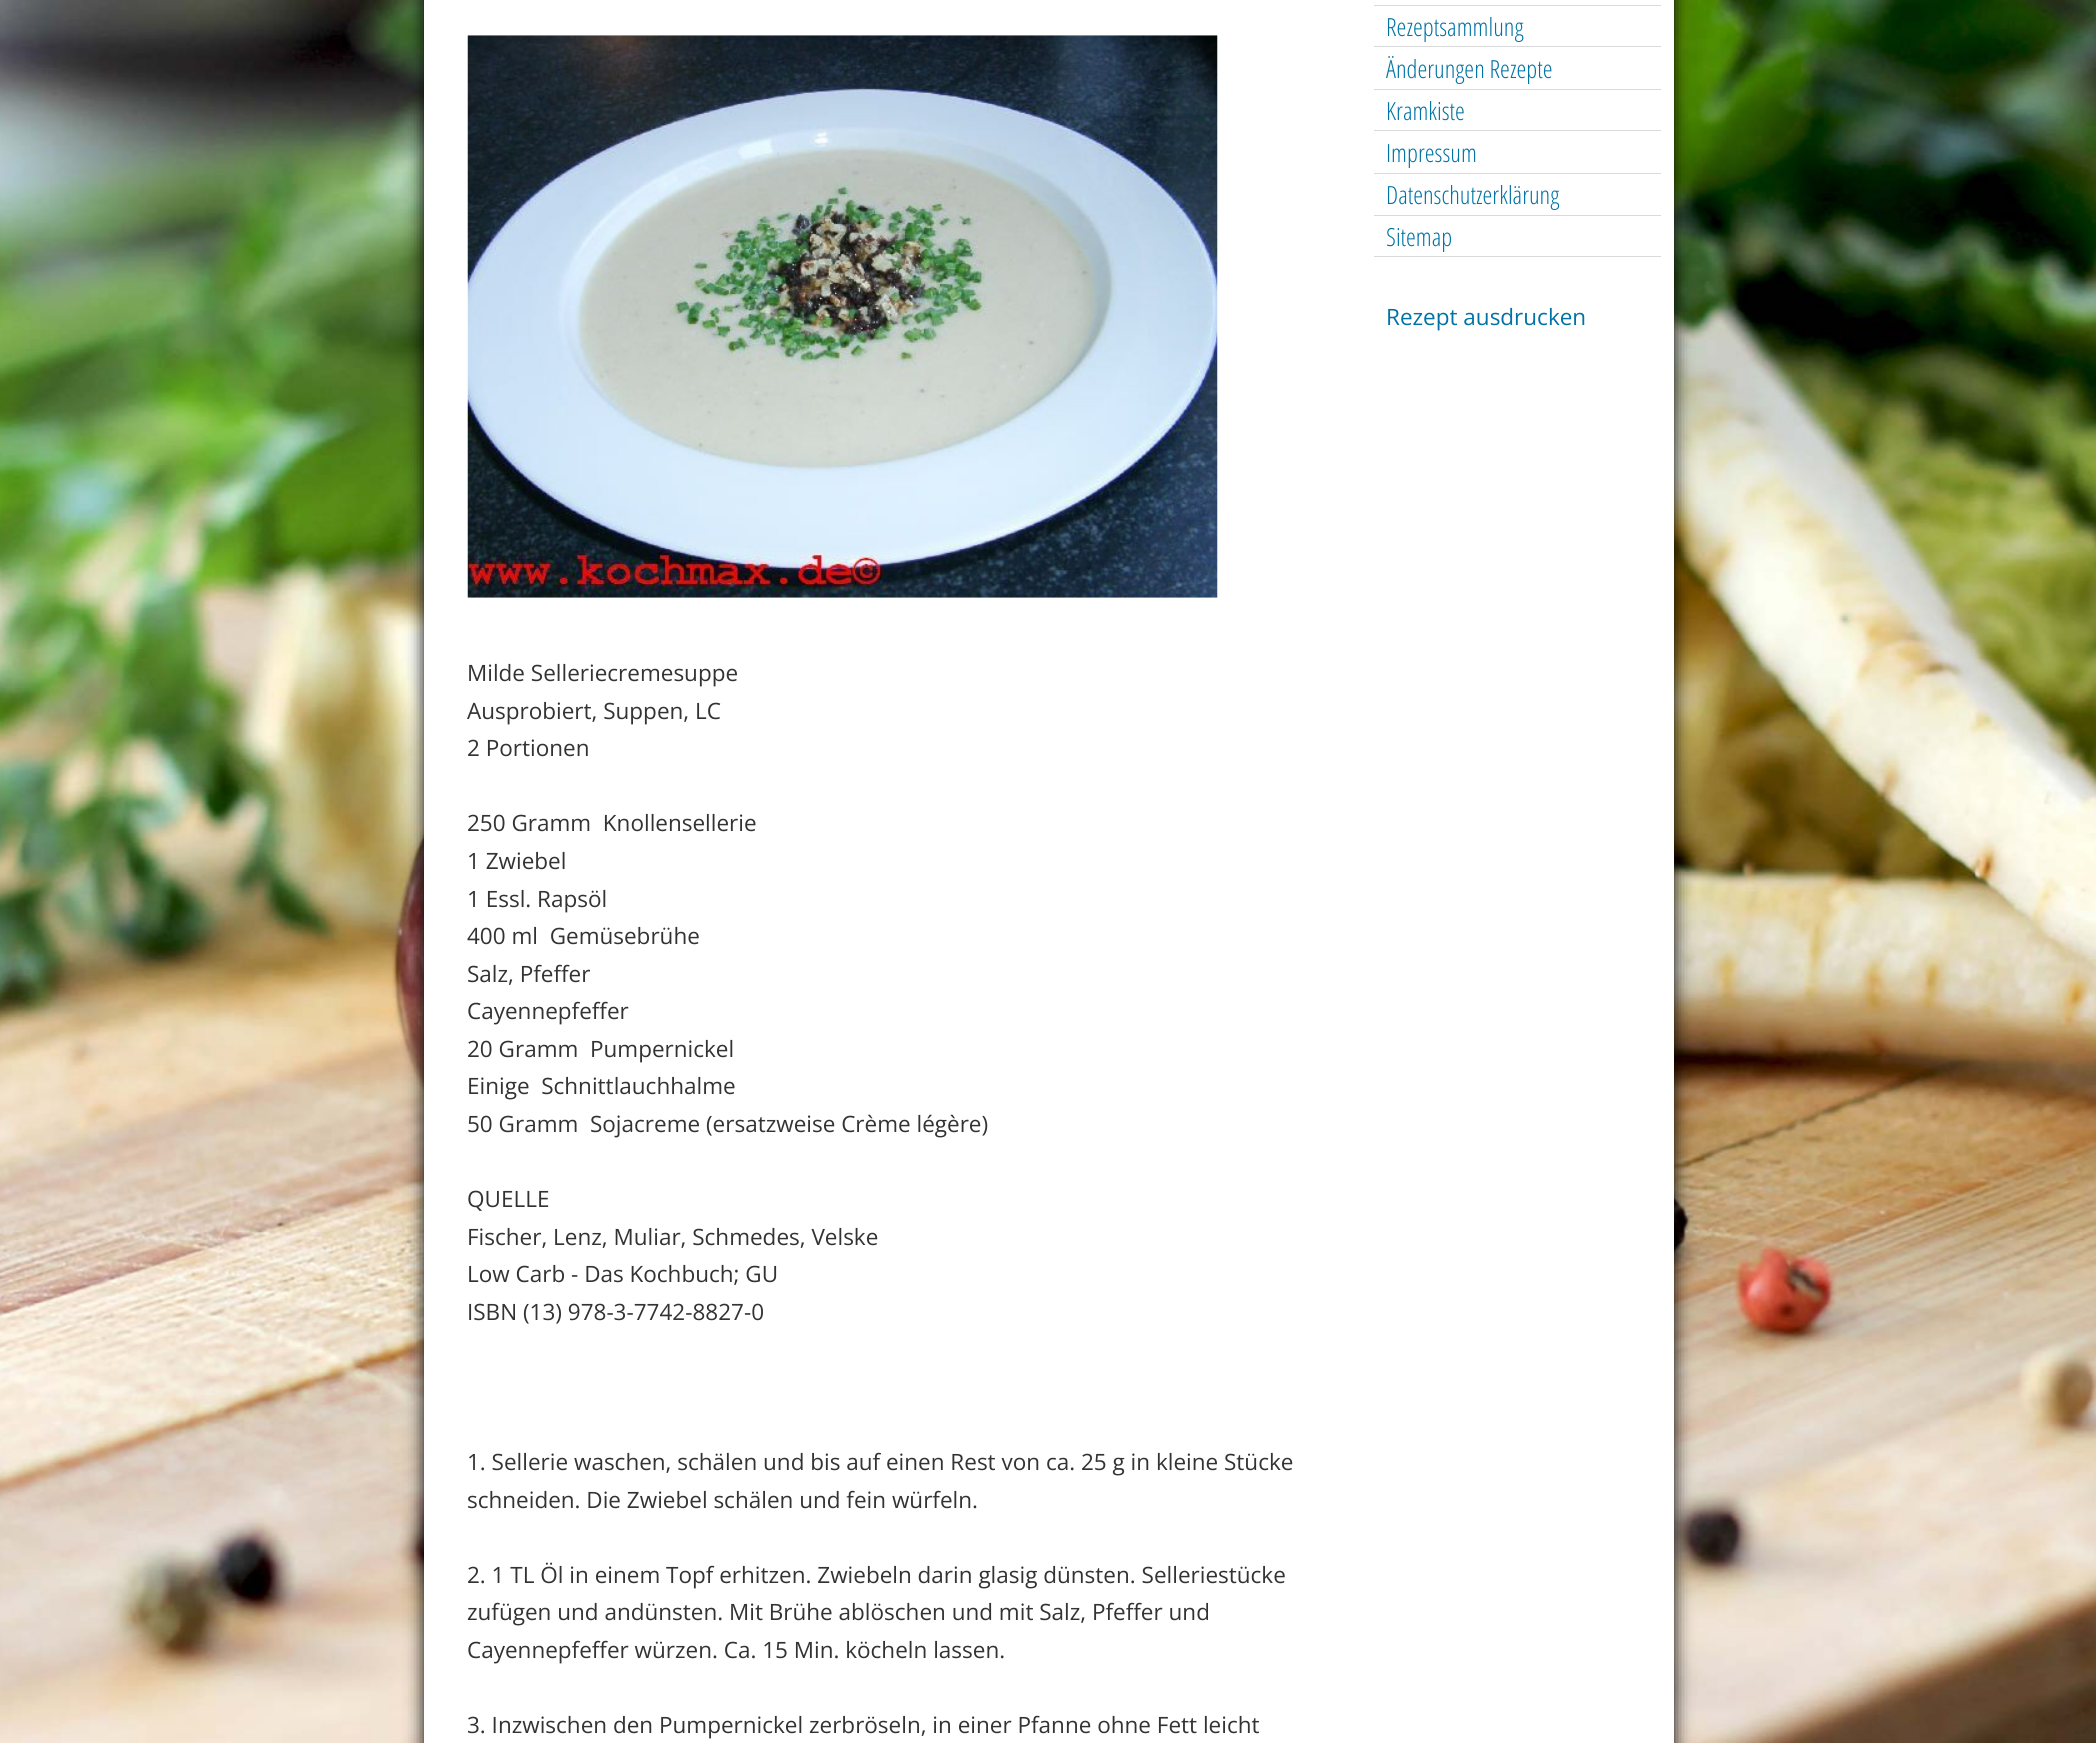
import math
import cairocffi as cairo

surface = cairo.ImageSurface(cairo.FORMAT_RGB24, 2096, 1743)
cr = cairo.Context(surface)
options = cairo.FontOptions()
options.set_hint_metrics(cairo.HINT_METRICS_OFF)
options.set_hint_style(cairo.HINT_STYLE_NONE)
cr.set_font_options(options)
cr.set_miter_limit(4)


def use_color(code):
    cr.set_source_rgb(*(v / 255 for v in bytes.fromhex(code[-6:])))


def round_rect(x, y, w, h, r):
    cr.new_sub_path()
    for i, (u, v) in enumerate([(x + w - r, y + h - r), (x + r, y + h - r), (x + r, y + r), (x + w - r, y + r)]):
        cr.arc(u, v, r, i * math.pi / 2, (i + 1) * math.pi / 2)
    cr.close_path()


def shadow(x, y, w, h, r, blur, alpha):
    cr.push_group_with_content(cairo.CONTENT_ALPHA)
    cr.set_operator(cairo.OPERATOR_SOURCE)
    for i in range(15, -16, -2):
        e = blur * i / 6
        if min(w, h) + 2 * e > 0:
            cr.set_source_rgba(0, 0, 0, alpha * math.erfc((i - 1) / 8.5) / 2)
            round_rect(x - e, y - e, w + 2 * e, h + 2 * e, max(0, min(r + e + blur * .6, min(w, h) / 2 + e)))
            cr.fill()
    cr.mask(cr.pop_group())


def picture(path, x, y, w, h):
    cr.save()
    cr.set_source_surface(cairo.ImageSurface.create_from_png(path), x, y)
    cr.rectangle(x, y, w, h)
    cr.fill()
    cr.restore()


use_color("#ffffff")
cr.paint()
picture("img1.png", 0, 0, 2096, 1743)
use_color("#000000")
shadow(424, -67, 1250, 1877, 40, 9, 1)
use_color("#ffffff")
cr.rectangle(424, 0, 1250, 1743)
cr.fill()
use_color("#dadada")
cr.rectangle(1374, 5, 287, 1)
cr.fill()
cr.rectangle(1374, 46, 287, 1)
cr.fill()
cr.select_font_face("Open Sans Condensed Light")
cr.set_font_size(25)
use_color("#0072a5")
cr.move_to(1386, 36)
cr.show_text("Rezeptsammlung")
use_color("#dadada")
cr.rectangle(1374, 89, 287, 1)
cr.fill()
use_color("#0072a5")
cr.move_to(1386, 78)
cr.show_text("Änderungen Rezepte")
use_color("#dadada")
cr.rectangle(1374, 130, 287, 1)
cr.fill()
use_color("#0072a5")
cr.move_to(1386, 120)
cr.show_text("Kramkiste")
use_color("#dadada")
cr.rectangle(1374, 173, 287, 1)
cr.fill()
use_color("#0072a5")
cr.move_to(1386, 162)
cr.show_text("Impressum")
use_color("#dadada")
cr.rectangle(1374, 215, 287, 1)
cr.fill()
use_color("#0072a5")
cr.move_to(1386, 204)
cr.show_text("Datenschutzerklärung")
use_color("#dadada")
cr.rectangle(1374, 256, 287, 1)
cr.fill()
use_color("#0072a5")
cr.move_to(1386, 246)
cr.show_text("Sitemap")
cr.select_font_face("Open Sans")
cr.set_font_size(22.5)
cr.move_to(1386, 325)
cr.show_text("Rezept ausdrucken")
picture("img2.png", 467, 35, 751, 563)
use_color("#333333")
cr.move_to(467, 681)
cr.show_text("Milde Selleriecremesuppe")
cr.move_to(467, 719)
cr.show_text("Ausprobiert, Suppen, LC")
cr.move_to(467, 756)
cr.show_text("2 Portionen")
cr.move_to(467, 831)
cr.show_text("250 Gramm  Knollensellerie")
cr.move_to(467, 869)
cr.show_text("1 Zwiebel")
cr.move_to(467, 907)
cr.show_text("1 Essl. Rapsöl")
cr.move_to(467, 944)
cr.show_text("400 ml  Gemüsebrühe")
cr.move_to(467, 982)
cr.show_text("Salz, Pfeffer")
cr.move_to(467, 1019)
cr.show_text("Cayennepfeffer")
cr.move_to(467, 1057)
cr.show_text("20 Gramm  Pumpernickel")
cr.move_to(467, 1094)
cr.show_text("Einige  Schnittlauchhalme")
cr.move_to(467, 1132)
cr.show_text("50 Gramm  Sojacreme (ersatzweise Crème légère)")
cr.move_to(467, 1207)
cr.show_text("QUELLE")
cr.move_to(467, 1245)
cr.show_text("Fischer, Lenz, Muliar, Schmedes, Velske")
cr.move_to(467, 1282)
cr.show_text("Low Carb - Das Kochbuch; GU")
cr.move_to(467, 1320)
cr.show_text("ISBN (13) 978-3-7742-8827-0")
cr.move_to(467, 1470)
cr.show_text("1. Sellerie waschen, schälen und bis auf einen Rest von ca. 25 g in kleine Stücke")
cr.move_to(467, 1508)
cr.show_text("schneiden. Die Zwiebel schälen und fein würfeln.")
cr.move_to(467, 1583)
cr.show_text("2. 1 TL Öl in einem Topf erhitzen. Zwiebeln darin glasig dünsten. Selleriestücke")
cr.move_to(467, 1620)
cr.show_text("zufügen und andünsten. Mit Brühe ablöschen und mit Salz, Pfeffer und")
cr.move_to(467, 1658)
cr.show_text("Cayennepfeffer würzen. Ca. 15 Min. köcheln lassen.")
cr.move_to(467, 1733)
cr.show_text("3. Inzwischen den Pumpernickel zerbröseln, in einer Pfanne ohne Fett leicht")
surface.write_to_png("result.png")
